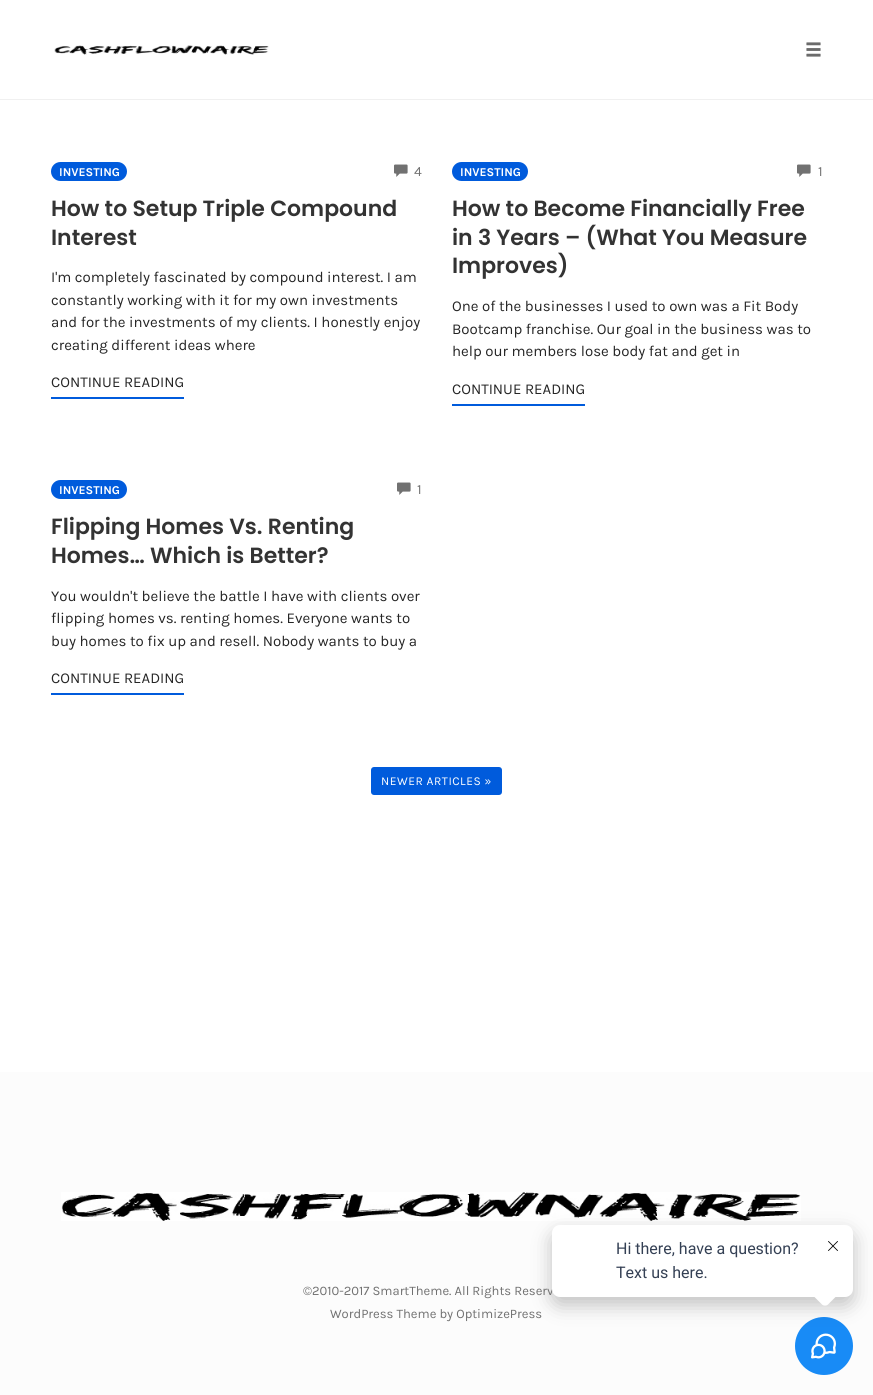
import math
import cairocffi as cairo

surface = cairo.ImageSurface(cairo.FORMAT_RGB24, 873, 1395)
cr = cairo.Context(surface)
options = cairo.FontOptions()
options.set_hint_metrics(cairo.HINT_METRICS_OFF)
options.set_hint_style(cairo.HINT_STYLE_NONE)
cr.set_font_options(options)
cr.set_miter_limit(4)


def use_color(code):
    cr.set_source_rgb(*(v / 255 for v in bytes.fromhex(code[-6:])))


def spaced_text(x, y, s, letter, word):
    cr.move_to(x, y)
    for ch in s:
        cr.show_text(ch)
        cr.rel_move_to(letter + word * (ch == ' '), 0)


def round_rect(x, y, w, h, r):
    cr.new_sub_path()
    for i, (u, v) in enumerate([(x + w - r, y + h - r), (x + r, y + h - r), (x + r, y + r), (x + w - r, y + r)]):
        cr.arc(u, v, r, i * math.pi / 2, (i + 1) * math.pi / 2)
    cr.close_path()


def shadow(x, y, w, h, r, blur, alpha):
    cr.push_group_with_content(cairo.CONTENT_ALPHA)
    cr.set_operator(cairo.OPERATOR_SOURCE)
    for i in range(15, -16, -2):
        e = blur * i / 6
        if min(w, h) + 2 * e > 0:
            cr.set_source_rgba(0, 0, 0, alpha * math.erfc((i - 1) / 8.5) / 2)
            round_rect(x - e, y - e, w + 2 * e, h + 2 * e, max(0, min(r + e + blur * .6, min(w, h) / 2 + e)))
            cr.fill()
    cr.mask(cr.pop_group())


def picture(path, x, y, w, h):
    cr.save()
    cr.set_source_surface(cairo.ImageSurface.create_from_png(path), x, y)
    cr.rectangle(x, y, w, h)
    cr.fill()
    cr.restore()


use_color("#ffffff")
cr.paint()
use_color("#f0f0f0")
cr.rectangle(0, 99, 873, 1)
cr.fill()
picture("img1.png", 54, 45, 215, 10)
picture("img2.png", 806, 42, 15, 15)
use_color("#005bdc")
round_rect(51, 162, 76, 19, 9.5)
cr.fill()
cr.select_font_face("Karla", cairo.FONT_SLANT_NORMAL, cairo.FONT_WEIGHT_BOLD)
cr.set_font_size(12)
use_color("#ffffff")
cr.move_to(59, 176)
cr.show_text("INVESTING")
picture("img3.png", 394, 164, 14, 13)
cr.select_font_face("Karla")
cr.set_font_size(14)
use_color("#707070")
cr.move_to(414, 176)
cr.show_text("4")
cr.select_font_face("Poppins SemiBold")
cr.set_font_size(22)
use_color("#333333")
cr.move_to(51, 216)
cr.show_text("How to Setup Triple Compound")
cr.move_to(51, 245)
cr.show_text("Interest")
cr.select_font_face("Karla")
cr.set_font_size(15)
use_color("#252525")
cr.move_to(51, 282)
cr.show_text("I'm completely fascinated by compound interest. I am")
cr.move_to(51, 305)
cr.show_text("constantly working with it for my own investments")
cr.move_to(51, 327)
cr.show_text("and for the investments of my clients. I honestly enjoy")
cr.move_to(51, 350)
cr.show_text("creating different ideas where")
cr.move_to(51, 387)
cr.show_text("CONTINUE READING")
use_color("#005bdc")
cr.rectangle(51, 397, 133, 2)
cr.fill()
round_rect(452, 162, 76, 19, 9.5)
cr.fill()
cr.select_font_face("Karla", cairo.FONT_SLANT_NORMAL, cairo.FONT_WEIGHT_BOLD)
cr.set_font_size(12)
use_color("#ffffff")
cr.move_to(460, 176)
cr.show_text("INVESTING")
picture("img3.png", 797, 164, 14, 13)
cr.select_font_face("Karla")
cr.set_font_size(14)
use_color("#707070")
cr.move_to(818, 176)
cr.show_text("1")
cr.select_font_face("Poppins SemiBold")
cr.set_font_size(22)
use_color("#333333")
cr.move_to(452, 216)
cr.show_text("How to Become Financially Free")
cr.move_to(452, 245)
cr.show_text("in 3 Years – (What You Measure")
cr.move_to(452, 273)
cr.show_text("Improves)")
cr.select_font_face("Karla")
cr.set_font_size(15)
use_color("#252525")
cr.move_to(452, 311)
cr.show_text("One of the businesses I used to own was a Fit Body")
cr.move_to(452, 334)
cr.show_text("Bootcamp franchise. Our goal in the business was to")
cr.move_to(452, 356)
cr.show_text("help our members lose body fat and get in")
cr.move_to(452, 394)
cr.show_text("CONTINUE READING")
use_color("#005bdc")
cr.rectangle(452, 404, 133, 2)
cr.fill()
round_rect(51, 480, 76, 19, 9.5)
cr.fill()
cr.select_font_face("Karla", cairo.FONT_SLANT_NORMAL, cairo.FONT_WEIGHT_BOLD)
cr.set_font_size(12)
use_color("#ffffff")
cr.move_to(59, 494)
cr.show_text("INVESTING")
picture("img3.png", 397, 482, 14, 13)
cr.select_font_face("Karla")
cr.set_font_size(14)
use_color("#707070")
cr.move_to(417, 494)
cr.show_text("1")
cr.select_font_face("Poppins SemiBold")
cr.set_font_size(22)
use_color("#333333")
cr.move_to(51, 534)
cr.show_text("Flipping Homes Vs. Renting")
cr.move_to(51, 563)
cr.show_text("Homes… Which is Better?")
cr.select_font_face("Karla")
cr.set_font_size(15)
use_color("#252525")
cr.move_to(51, 601)
cr.show_text("You wouldn't believe the battle I have with clients over")
cr.move_to(51, 623)
cr.show_text("flipping homes vs. renting homes. Everyone wants to")
cr.move_to(51, 646)
cr.show_text("buy homes to fix up and resell. Nobody wants to buy a")
cr.move_to(51, 683)
cr.show_text("CONTINUE READING")
use_color("#005bdc")
cr.rectangle(51, 693, 133, 2)
cr.fill()
round_rect(371, 767, 131, 28, 3)
cr.fill()
cr.set_font_size(12)
use_color("#ffffff")
spaced_text(381, 785, "NEWER ARTICLES »", 0.5, 0)
use_color("#fcfcfc")
cr.rectangle(0, 1072, 873, 323)
cr.fill()
use_color("#188bf6")
cr.arc(824, 1346, 29, 0, 2 * math.pi)
cr.fill()
picture("img5.png", 811, 1333, 25, 26)
picture("img6.png", 61, 1192, 740, 29)
use_color("#000000")
shadow(552, 1233, 301, 72, 8, 10, 0.24)
cr.set_font_size(13)
use_color("#707070")
cr.move_to(303, 1295)
cr.show_text("©2010-2017 SmartTheme. All Rights Reserv")
use_color("#ffffff")
round_rect(552, 1225, 301, 72, 8)
cr.fill()
cr.select_font_face("Roboto")
cr.set_font_size(16)
use_color("#344054")
cr.move_to(616, 1254)
cr.show_text("Hi there, have a question?")
cr.move_to(616, 1278)
cr.show_text("Text us here.")
use_color("#ffffff")
cr.new_path()
cr.move_to(828, 1281.5)
cr.line_to(836.5, 1290)
cr.curve_to(838, 1291.5, 838, 1294.5, 836.5, 1296)
cr.line_to(828, 1304.5)
cr.curve_to(826.5, 1306, 823.5, 1306, 822, 1304.5)
cr.line_to(813.5, 1296)
cr.curve_to(812, 1294.5, 812, 1291.5, 813.5, 1290)
cr.line_to(822, 1281.5)
cr.curve_to(823.5, 1280, 826.5, 1280, 828, 1281.5)
cr.close_path()
cr.fill()
picture("img4.png", 828, 1241, 10, 10)
cr.select_font_face("Karla")
cr.set_font_size(13)
use_color("#707070")
cr.move_to(330, 1318)
cr.show_text("WordPress Theme by OptimizePress")
surface.write_to_png("result.png")
